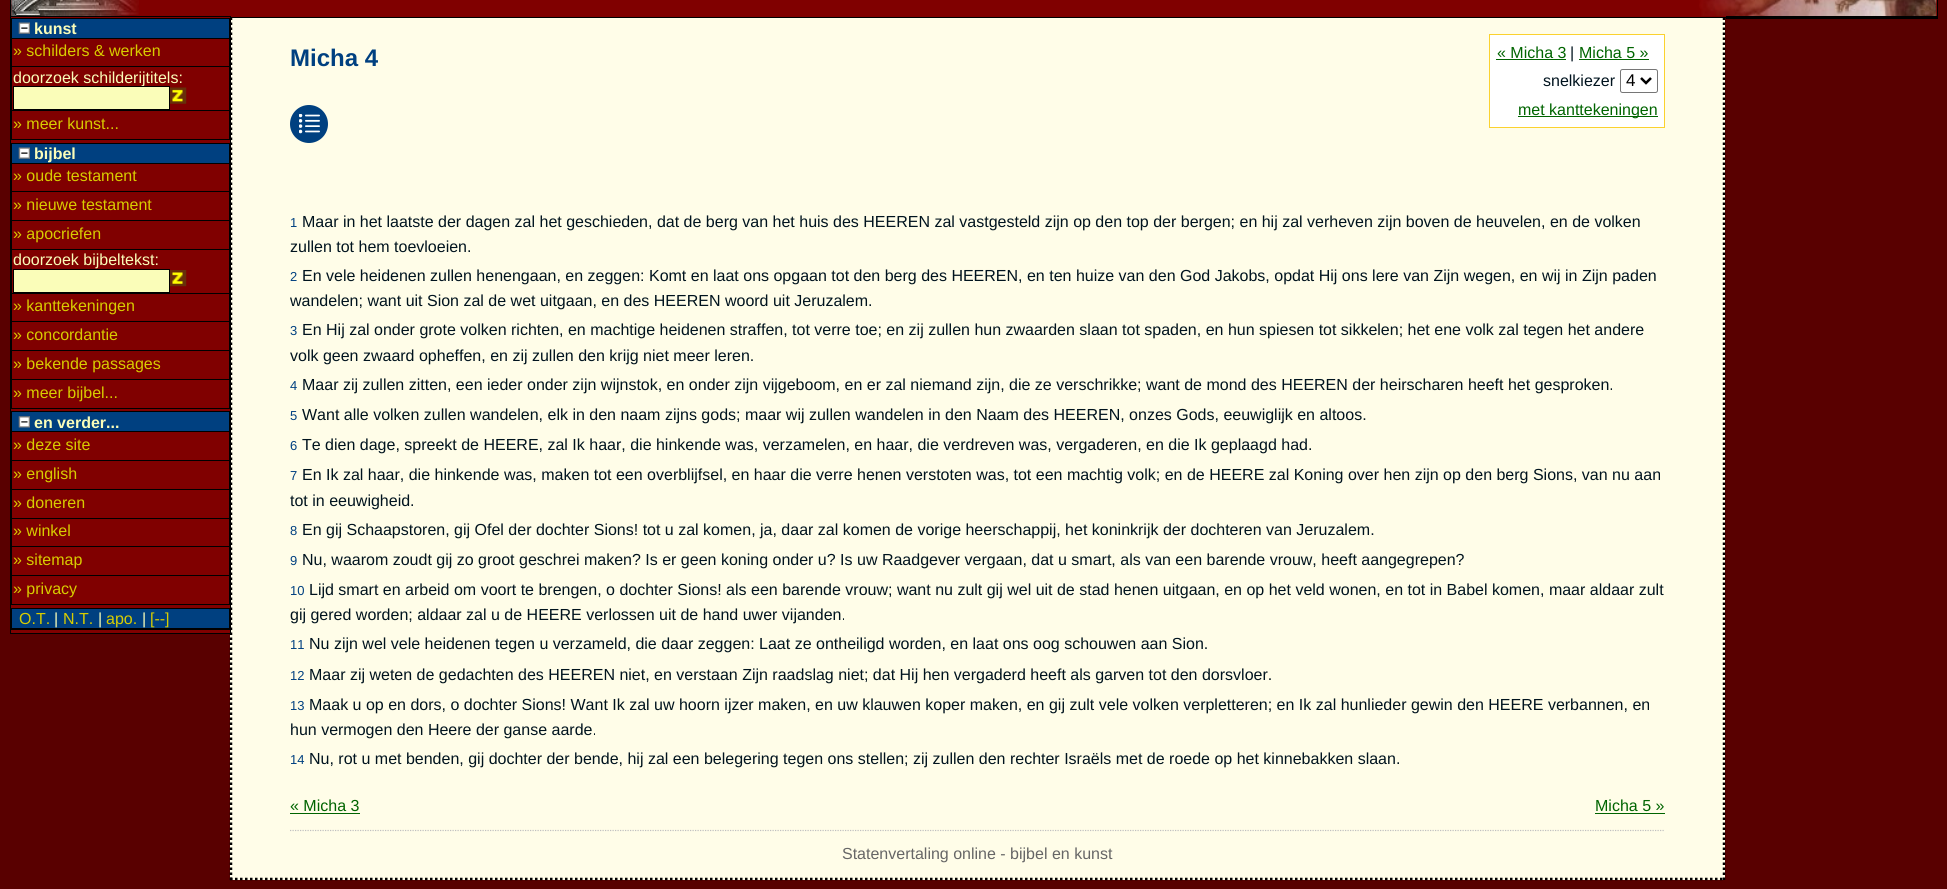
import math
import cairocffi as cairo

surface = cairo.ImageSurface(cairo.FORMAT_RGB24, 1947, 889)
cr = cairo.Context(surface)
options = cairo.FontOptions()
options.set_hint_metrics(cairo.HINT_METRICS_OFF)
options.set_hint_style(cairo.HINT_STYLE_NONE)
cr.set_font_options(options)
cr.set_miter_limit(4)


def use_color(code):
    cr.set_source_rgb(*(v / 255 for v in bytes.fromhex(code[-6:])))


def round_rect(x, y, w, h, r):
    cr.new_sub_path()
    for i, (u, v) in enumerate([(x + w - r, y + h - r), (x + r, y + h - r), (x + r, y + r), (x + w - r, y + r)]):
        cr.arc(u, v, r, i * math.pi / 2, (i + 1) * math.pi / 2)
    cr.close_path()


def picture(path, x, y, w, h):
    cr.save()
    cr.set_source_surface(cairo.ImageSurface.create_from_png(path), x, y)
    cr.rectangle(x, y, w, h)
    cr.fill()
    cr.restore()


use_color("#590000")
cr.paint()
use_color("#800000")
cr.rectangle(11, 0, 1926, 17)
cr.fill()
picture("img1.png", 11, 0, 128, 16)
use_color("#fffde8")
cr.rectangle(230, 18, 1495, 862)
cr.fill()
cr.new_path()
cr.move_to(1724, 17.5)
cr.line_to(1724, 880)
use_color("#000000")
cr.set_line_width(2.5)
cr.set_dash([2.5, 2.5])
cr.stroke()
cr.new_path()
cr.move_to(230, 879)
cr.line_to(1725, 879)
cr.stroke()
cr.new_path()
cr.move_to(231, 17.5)
cr.line_to(231, 880)
cr.stroke()
cr.rectangle(10.5, -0.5, 1927, 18)
cr.set_line_width(1)
cr.set_dash([])
cr.stroke()
picture("img2.png", 1699, 0, 238, 17)
cr.rectangle(1726, 16, 212, 3)
cr.fill()
use_color("#800000")
cr.rectangle(10.5, 16.5, 220, 617)
cr.fill_preserve()
use_color("#000000")
cr.stroke()
cr.rectangle(229, 18, 1, 122)
cr.fill()
cr.rectangle(11, 139, 219, 1)
cr.fill()
use_color("#004080")
cr.rectangle(12, 19, 217, 19)
cr.fill()
use_color("#000000")
cr.rectangle(11, 18, 218, 1)
cr.fill()
cr.rectangle(11, 18, 1, 20)
cr.fill()
picture("img3.png", 18, 22, 12, 12)
cr.select_font_face("Liberation Sans", cairo.FONT_SLANT_NORMAL, cairo.FONT_WEIGHT_BOLD)
cr.set_font_size(16)
use_color("#fafdb9")
cr.move_to(34, 34)
cr.show_text("kunst")
use_color("#000000")
cr.rectangle(11, 38, 218, 1)
cr.fill()
cr.rectangle(11, 38, 1, 28)
cr.fill()
cr.select_font_face("Liberation Sans")
use_color("#d8cc00")
cr.move_to(13, 56)
cr.show_text("» schilders & werken")
use_color("#000000")
cr.rectangle(11, 66, 218, 1)
cr.fill()
cr.rectangle(11, 66, 1, 44)
cr.fill()
use_color("#fafdb9")
cr.move_to(13, 83)
cr.show_text("doorzoek schilderijtitels:")
cr.rectangle(13.5, 86.5, 156, 23)
cr.fill_preserve()
use_color("#000000")
cr.stroke()
picture("img4.png", 170, 87, 17, 17)
cr.rectangle(11, 110, 218, 1)
cr.fill()
cr.rectangle(11, 110, 1, 29)
cr.fill()
use_color("#d8cc00")
cr.move_to(13, 129)
cr.show_text("» meer kunst...")
use_color("#000000")
cr.rectangle(229, 143, 1, 266)
cr.fill()
cr.rectangle(11, 408, 219, 1)
cr.fill()
use_color("#004080")
cr.rectangle(12, 144, 217, 19)
cr.fill()
use_color("#000000")
cr.rectangle(11, 143, 218, 1)
cr.fill()
cr.rectangle(11, 143, 1, 20)
cr.fill()
picture("img3.png", 18, 147, 12, 12)
cr.select_font_face("Liberation Sans", cairo.FONT_SLANT_NORMAL, cairo.FONT_WEIGHT_BOLD)
use_color("#fafdb9")
cr.move_to(34, 159)
cr.show_text("bijbel")
use_color("#000000")
cr.rectangle(11, 163, 218, 1)
cr.fill()
cr.rectangle(11, 163, 1, 28)
cr.fill()
cr.select_font_face("Liberation Sans")
use_color("#d8cc00")
cr.move_to(13, 181)
cr.show_text("» oude testament")
use_color("#000000")
cr.rectangle(11, 191, 218, 1)
cr.fill()
cr.rectangle(11, 191, 1, 29)
cr.fill()
use_color("#d8cc00")
cr.move_to(13, 210)
cr.show_text("» nieuwe testament")
use_color("#000000")
cr.rectangle(11, 220, 218, 1)
cr.fill()
cr.rectangle(11, 220, 1, 29)
cr.fill()
use_color("#d8cc00")
cr.move_to(13, 239)
cr.show_text("» apocriefen")
use_color("#000000")
cr.rectangle(11, 249, 218, 1)
cr.fill()
cr.rectangle(11, 249, 1, 44)
cr.fill()
use_color("#fafdb9")
cr.move_to(13, 265)
cr.show_text("doorzoek bijbeltekst:")
cr.rectangle(13.5, 269.5, 156, 23)
cr.fill_preserve()
use_color("#000000")
cr.stroke()
picture("img5.png", 170, 270, 17, 17)
cr.rectangle(11, 293, 218, 1)
cr.fill()
cr.rectangle(11, 293, 1, 28)
cr.fill()
use_color("#d8cc00")
cr.move_to(13, 311)
cr.show_text("» kanttekeningen")
use_color("#000000")
cr.rectangle(11, 321, 218, 1)
cr.fill()
cr.rectangle(11, 321, 1, 29)
cr.fill()
use_color("#d8cc00")
cr.move_to(13, 340)
cr.show_text("» concordantie")
use_color("#000000")
cr.rectangle(11, 350, 218, 1)
cr.fill()
cr.rectangle(11, 350, 1, 29)
cr.fill()
use_color("#d8cc00")
cr.move_to(13, 369)
cr.show_text("» bekende passages")
use_color("#000000")
cr.rectangle(11, 379, 218, 1)
cr.fill()
cr.rectangle(11, 379, 1, 29)
cr.fill()
use_color("#d8cc00")
cr.move_to(13, 398)
cr.show_text("» meer bijbel...")
use_color("#000000")
cr.rectangle(229, 411, 1, 194)
cr.fill()
cr.rectangle(11, 604, 219, 1)
cr.fill()
use_color("#004080")
cr.rectangle(12, 412, 217, 19)
cr.fill()
use_color("#000000")
cr.rectangle(11, 411, 218, 1)
cr.fill()
cr.rectangle(11, 411, 1, 20)
cr.fill()
picture("img6.png", 18, 416, 12, 12)
cr.select_font_face("Liberation Sans", cairo.FONT_SLANT_NORMAL, cairo.FONT_WEIGHT_BOLD)
use_color("#fafdb9")
cr.move_to(34, 428)
cr.show_text("en verder...")
use_color("#000000")
cr.rectangle(11, 431, 218, 1)
cr.fill()
cr.rectangle(11, 431, 1, 29)
cr.fill()
cr.select_font_face("Liberation Sans")
use_color("#d8cc00")
cr.move_to(13, 450)
cr.show_text("» deze site")
use_color("#000000")
cr.rectangle(11, 460, 218, 1)
cr.fill()
cr.rectangle(11, 460, 1, 29)
cr.fill()
use_color("#d8cc00")
cr.move_to(13, 479)
cr.show_text("» english")
use_color("#000000")
cr.rectangle(11, 489, 218, 1)
cr.fill()
cr.rectangle(11, 489, 1, 29)
cr.fill()
use_color("#d8cc00")
cr.move_to(13, 508)
cr.show_text("» doneren")
use_color("#000000")
cr.rectangle(11, 518, 218, 1)
cr.fill()
cr.rectangle(11, 518, 1, 28)
cr.fill()
use_color("#d8cc00")
cr.move_to(13, 536)
cr.show_text("» winkel")
use_color("#000000")
cr.rectangle(11, 546, 218, 1)
cr.fill()
cr.rectangle(11, 546, 1, 29)
cr.fill()
use_color("#d8cc00")
cr.move_to(13, 565)
cr.show_text("» sitemap")
use_color("#000000")
cr.rectangle(11, 575, 218, 1)
cr.fill()
cr.rectangle(11, 575, 1, 29)
cr.fill()
use_color("#d8cc00")
cr.move_to(13, 594)
cr.show_text("» privacy")
use_color("#000000")
cr.rectangle(229, 608, 1, 22)
cr.fill()
cr.rectangle(11, 629, 219, 1)
cr.fill()
use_color("#004080")
cr.rectangle(12, 609, 217, 19)
cr.fill()
use_color("#000000")
cr.rectangle(11, 608, 218, 1)
cr.fill()
cr.rectangle(11, 608, 1, 20)
cr.fill()
use_color("#d8cc00")
cr.move_to(19, 624)
cr.show_text("O.T.")
use_color("#fafdb9")
cr.move_to(54, 624)
cr.show_text("|")
use_color("#d8cc00")
cr.move_to(63, 624)
cr.show_text("N.T.")
use_color("#fafdb9")
cr.move_to(98, 624)
cr.show_text("|")
use_color("#d8cc00")
cr.move_to(106, 624)
cr.show_text("apo.")
use_color("#fafdb9")
cr.move_to(142, 624)
cr.show_text("|")
use_color("#d8cc00")
cr.move_to(150, 624)
cr.show_text("[--]")
use_color("#000000")
cr.rectangle(11, 628, 218, 1)
cr.fill()
cr.select_font_face("Liberation Sans", cairo.FONT_SLANT_NORMAL, cairo.FONT_WEIGHT_BOLD)
cr.set_font_size(24)
use_color("#004080")
cr.move_to(290, 66)
cr.show_text("Micha 4")
use_color("#ffffff")
cr.rectangle(1489.5, 34.5, 175, 93)
cr.fill_preserve()
use_color("#fbd22f")
cr.stroke()
cr.select_font_face("Liberation Sans")
cr.set_font_size(16)
use_color("#006400")
cr.move_to(1497, 58)
cr.show_text("« Micha 3")
cr.rectangle(1496, 59, 70, 1)
cr.fill()
use_color("#00131e")
cr.move_to(1570, 58)
cr.show_text("|")
use_color("#006400")
cr.move_to(1579, 58)
cr.show_text("Micha 5 »")
cr.rectangle(1579, 59, 70, 1)
cr.fill()
use_color("#00131e")
cr.move_to(1543, 86)
cr.show_text("snelkiezer")
round_rect(1620.5, 69.5, 37, 23, 2)
use_color("#767676")
cr.stroke()
cr.new_path()
cr.move_to(1641, 78)
cr.line_to(1646, 83)
cr.line_to(1651, 78)
use_color("#000000")
cr.set_line_width(2.5)
cr.stroke()
cr.set_font_size(17)
cr.move_to(1626, 86)
cr.show_text("4")
use_color("#006400")
cr.rectangle(1518, 116, 140, 1)
cr.fill()
cr.set_font_size(16)
cr.move_to(1518, 115)
cr.show_text("met kanttekeningen")
use_color("#004080")
cr.new_path()
cr.arc(309, 124, 19, 0, 2 * math.pi)
cr.fill()
picture("img7.png", 299, 114, 21, 20)
cr.set_font_size(13)
cr.move_to(290, 227)
cr.show_text("1")
cr.set_font_size(16)
use_color("#00131e")
cr.move_to(302, 227)
cr.show_text("Maar in het laatste der dagen zal het geschieden, dat de berg van het huis des HEEREN zal vastgesteld zijn op den top der bergen; en hij zal verheven zijn boven de heuvelen, en de volken")
cr.move_to(290, 252)
cr.show_text("zullen tot hem toevloeien.")
cr.set_font_size(13)
use_color("#004080")
cr.move_to(290, 281)
cr.show_text("2")
cr.set_font_size(16)
use_color("#00131e")
cr.move_to(302, 281)
cr.show_text("En vele heidenen zullen henengaan, en zeggen: Komt en laat ons opgaan tot den berg des HEEREN, en ten huize van den God Jakobs, opdat Hij ons lere van Zijn wegen, en wij in Zijn paden")
cr.move_to(290, 306)
cr.show_text("wandelen; want uit Sion zal de wet uitgaan, en des HEEREN woord uit Jeruzalem.")
cr.set_font_size(13)
use_color("#004080")
cr.move_to(290, 335)
cr.show_text("3")
cr.set_font_size(16)
use_color("#00131e")
cr.move_to(302, 335)
cr.show_text("En Hij zal onder grote volken richten, en machtige heidenen straffen, tot verre toe; en zij zullen hun zwaarden slaan tot spaden, en hun spiesen tot sikkelen; het ene volk zal tegen het andere")
cr.move_to(290, 361)
cr.show_text("volk geen zwaard opheffen, en zij zullen den krijg niet meer leren.")
cr.set_font_size(13)
use_color("#004080")
cr.move_to(290, 390)
cr.show_text("4")
cr.set_font_size(16)
use_color("#00131e")
cr.move_to(302, 390)
cr.show_text("Maar zij zullen zitten, een ieder onder zijn wijnstok, en onder zijn vijgeboom, en er zal niemand zijn, die ze verschrikke; want de mond des HEEREN der heirscharen heeft het gesproken.")
cr.set_font_size(13)
use_color("#004080")
cr.move_to(290, 420)
cr.show_text("5")
cr.set_font_size(16)
use_color("#00131e")
cr.move_to(302, 420)
cr.show_text("Want alle volken zullen wandelen, elk in den naam zijns gods; maar wij zullen wandelen in den Naam des HEEREN, onzes Gods, eeuwiglijk en altoos.")
cr.set_font_size(13)
use_color("#004080")
cr.move_to(290, 450)
cr.show_text("6")
cr.set_font_size(16)
use_color("#00131e")
cr.move_to(302, 450)
cr.show_text("Te dien dage, spreekt de HEERE, zal Ik haar, die hinkende was, verzamelen, en haar, die verdreven was, vergaderen, en die Ik geplaagd had.")
cr.set_font_size(13)
use_color("#004080")
cr.move_to(290, 480)
cr.show_text("7")
cr.set_font_size(16)
use_color("#00131e")
cr.move_to(302, 480)
cr.show_text("En Ik zal haar, die hinkende was, maken tot een overblijfsel, en haar die verre henen verstoten was, tot een machtig volk; en de HEERE zal Koning over hen zijn op den berg Sions, van nu aan")
cr.move_to(290, 506)
cr.show_text("tot in eeuwigheid.")
cr.set_font_size(13)
use_color("#004080")
cr.move_to(290, 535)
cr.show_text("8")
cr.set_font_size(16)
use_color("#00131e")
cr.move_to(302, 535)
cr.show_text("En gij Schaapstoren, gij Ofel der dochter Sions! tot u zal komen, ja, daar zal komen de vorige heerschappij, het koninkrijk der dochteren van Jeruzalem.")
cr.set_font_size(13)
use_color("#004080")
cr.move_to(290, 565)
cr.show_text("9")
cr.set_font_size(16)
use_color("#00131e")
cr.move_to(302, 565)
cr.show_text("Nu, waarom zoudt gij zo groot geschrei maken? Is er geen koning onder u? Is uw Raadgever vergaan, dat u smart, als van een barende vrouw, heeft aangegrepen?")
cr.set_font_size(13)
use_color("#004080")
cr.move_to(290, 595)
cr.show_text("10")
cr.set_font_size(16)
use_color("#00131e")
cr.move_to(309, 595)
cr.show_text("Lijd smart en arbeid om voort te brengen, o dochter Sions! als een barende vrouw; want nu zult gij wel uit de stad henen uitgaan, en op het veld wonen, en tot in Babel komen, maar aldaar zult")
cr.move_to(290, 620)
cr.show_text("gij gered worden; aldaar zal u de HEERE verlossen uit de hand uwer vijanden.")
cr.set_font_size(13)
use_color("#004080")
cr.move_to(290, 649)
cr.show_text("11")
cr.set_font_size(16)
use_color("#00131e")
cr.move_to(309, 649)
cr.show_text("Nu zijn wel vele heidenen tegen u verzameld, die daar zeggen: Laat ze ontheiligd worden, en laat ons oog schouwen aan Sion.")
cr.set_font_size(13)
use_color("#004080")
cr.move_to(290, 680)
cr.show_text("12")
cr.set_font_size(16)
use_color("#00131e")
cr.move_to(309, 680)
cr.show_text("Maar zij weten de gedachten des HEEREN niet, en verstaan Zijn raadslag niet; dat Hij hen vergaderd heeft als garven tot den dorsvloer.")
cr.set_font_size(13)
use_color("#004080")
cr.move_to(290, 710)
cr.show_text("13")
cr.set_font_size(16)
use_color("#00131e")
cr.move_to(309, 710)
cr.show_text("Maak u op en dors, o dochter Sions! Want Ik zal uw hoorn ijzer maken, en uw klauwen koper maken, en gij zult vele volken verpletteren; en Ik zal hunlieder gewin den HEERE verbannen, en")
cr.move_to(290, 735)
cr.show_text("hun vermogen den Heere der ganse aarde.")
cr.set_font_size(13)
use_color("#004080")
cr.move_to(290, 764)
cr.show_text("14")
cr.set_font_size(16)
use_color("#00131e")
cr.move_to(309, 764)
cr.show_text("Nu, rot u met benden, gij dochter der bende, hij zal een belegering tegen ons stellen; zij zullen den rechter Israëls met de roede op het kinnebakken slaan.")
use_color("#006400")
cr.move_to(290, 811)
cr.show_text("« Micha 3")
cr.rectangle(290, 813, 70, 1)
cr.fill()
cr.move_to(1595, 811)
cr.show_text("Micha 5 »")
cr.rectangle(1595, 813, 70, 1)
cr.fill()
cr.new_path()
cr.move_to(290, 830.5)
cr.line_to(1665, 830.5)
use_color("#c0c0c0")
cr.set_line_width(1.2)
cr.set_dash([1.25, 1.25])
cr.stroke()
use_color("#666666")
cr.move_to(842, 859)
cr.show_text("Statenvertaling online - bijbel en kunst")
surface.write_to_png("result.png")
